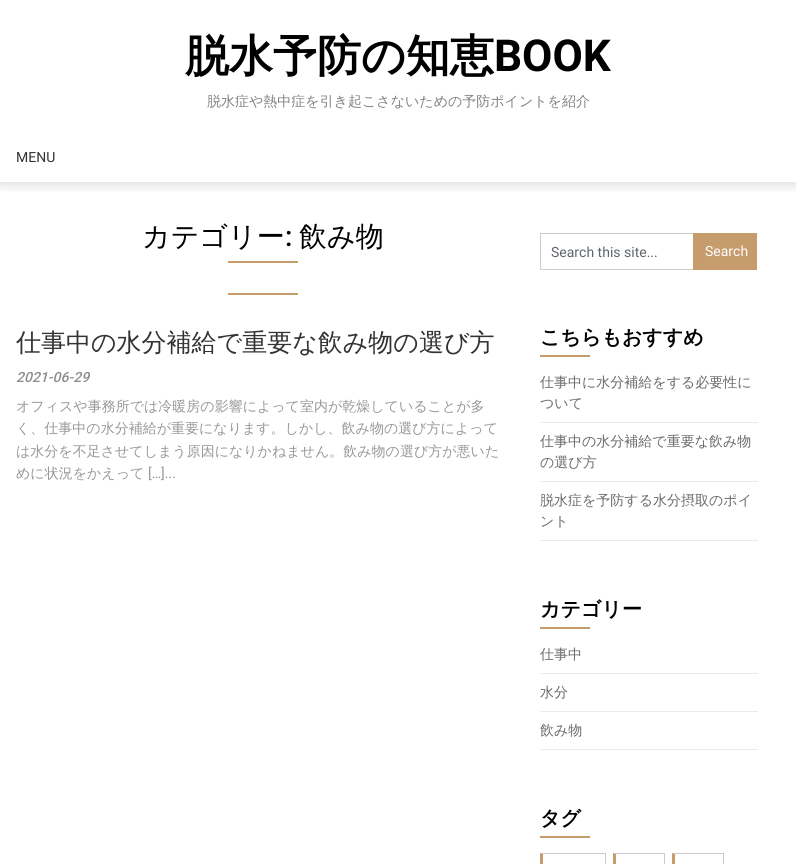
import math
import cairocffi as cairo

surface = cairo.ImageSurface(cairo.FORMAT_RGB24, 796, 864)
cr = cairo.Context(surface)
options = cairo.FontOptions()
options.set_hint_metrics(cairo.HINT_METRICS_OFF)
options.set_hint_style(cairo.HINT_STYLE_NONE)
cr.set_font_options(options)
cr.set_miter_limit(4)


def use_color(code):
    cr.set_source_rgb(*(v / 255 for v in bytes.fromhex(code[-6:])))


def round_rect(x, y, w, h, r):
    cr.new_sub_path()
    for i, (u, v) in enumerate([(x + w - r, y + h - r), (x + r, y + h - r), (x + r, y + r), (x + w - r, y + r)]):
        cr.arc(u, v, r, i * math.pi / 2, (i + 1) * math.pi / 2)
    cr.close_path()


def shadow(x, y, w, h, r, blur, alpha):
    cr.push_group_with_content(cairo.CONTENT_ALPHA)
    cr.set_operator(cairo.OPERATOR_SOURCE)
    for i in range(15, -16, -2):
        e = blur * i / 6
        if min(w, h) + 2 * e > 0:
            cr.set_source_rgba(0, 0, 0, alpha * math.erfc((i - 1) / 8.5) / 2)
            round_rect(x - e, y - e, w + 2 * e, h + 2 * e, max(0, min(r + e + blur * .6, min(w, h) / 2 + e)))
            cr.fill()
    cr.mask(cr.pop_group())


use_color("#ffffff")
cr.paint()
cr.save()
cr.rectangle(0, 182, 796, 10)
cr.clip()
use_color("#000000")
shadow(0, 0, 796, 182, 0, 7.5, 0.2)
cr.restore()
cr.select_font_face("WenQuanYi Zen Hei", cairo.FONT_SLANT_NORMAL, cairo.FONT_WEIGHT_BOLD)
cr.set_font_size(44)
use_color("#000000")
cr.move_to(185, 71)
cr.show_text("脱水予防の知恵")
cr.select_font_face("Roboto", cairo.FONT_SLANT_NORMAL, cairo.FONT_WEIGHT_BOLD)
cr.move_to(494, 71)
cr.show_text("BOOK")
cr.select_font_face("WenQuanYi Zen Hei Medium")
cr.set_font_size(14)
use_color("#828282")
cr.move_to(207, 106)
cr.show_text("脱水症や熱中症を引き起こさないための予防ポイントを紹介")
cr.select_font_face("Roboto")
use_color("#333333")
cr.move_to(16, 162)
cr.show_text("MENU")
cr.select_font_face("WenQuanYi Zen Hei Medium")
cr.set_font_size(28)
use_color("#000000")
cr.move_to(142, 246)
cr.show_text("カテゴリー")
cr.select_font_face("Roboto Medium")
cr.move_to(285, 246)
cr.show_text(":")
cr.select_font_face("WenQuanYi Zen Hei Medium")
cr.move_to(299, 246)
cr.show_text("飲み物")
use_color("#c69c6d")
cr.rectangle(228, 261, 70, 2)
cr.fill()
cr.rectangle(228, 293, 70, 2)
cr.fill()
cr.set_font_size(25)
use_color("#333333")
cr.move_to(16, 351)
cr.show_text("仕事中の水分補給で重要な飲み物の選び方")
cr.select_font_face("Roboto Medium", cairo.FONT_SLANT_ITALIC)
cr.set_font_size(14)
use_color("#8c8c8c")
cr.move_to(16, 382)
cr.show_text("2021-06-29")
cr.select_font_face("WenQuanYi Zen Hei Medium")
use_color("#989898")
cr.move_to(16, 411)
cr.show_text("オフィスや事務所では冷暖房の影響によって室内が乾燥していることが多")
cr.move_to(16, 433)
cr.show_text("く、仕事中の水分補給が重要になります。しかし、飲み物の選び方によって")
cr.move_to(16, 456)
cr.show_text("は水分を不足させてしまう原因になりかねません。飲み物の選び方が悪いた")
cr.move_to(16, 478)
cr.show_text("めに状況をかえって")
cr.select_font_face("Roboto")
cr.move_to(148, 478)
cr.show_text("[…]...")
use_color("#cccccc")
cr.rectangle(540, 233, 153, 1)
cr.fill()
cr.rectangle(540, 269, 153, 1)
cr.fill()
cr.rectangle(540, 233, 1, 37)
cr.fill()
use_color("#5e656d")
cr.move_to(551, 257)
cr.show_text("Search this site...")
use_color("#c69c6d")
cr.rectangle(693, 233, 64, 37)
cr.fill()
use_color("#ffffff")
cr.move_to(705, 256)
cr.show_text("Search")
cr.select_font_face("WenQuanYi Zen Hei", cairo.FONT_SLANT_NORMAL, cairo.FONT_WEIGHT_BOLD)
cr.set_font_size(20)
use_color("#000000")
cr.move_to(540, 344)
cr.show_text("こちらもおすすめ")
use_color("#c69c6d")
cr.rectangle(540, 355, 50, 2)
cr.fill()
use_color("#ebebeb")
cr.rectangle(540, 422, 218, 1)
cr.fill()
cr.select_font_face("WenQuanYi Zen Hei Medium")
cr.set_font_size(14)
use_color("#6b6b6b")
cr.move_to(540, 387)
cr.show_text("仕事中に水分補給をする必要性に")
cr.move_to(540, 408)
cr.show_text("ついて")
use_color("#ebebeb")
cr.rectangle(540, 481, 218, 1)
cr.fill()
use_color("#6b6b6b")
cr.move_to(540, 446)
cr.show_text("仕事中の水分補給で重要な飲み物")
cr.move_to(540, 467)
cr.show_text("の選び方")
use_color("#ebebeb")
cr.rectangle(540, 540, 218, 1)
cr.fill()
use_color("#6b6b6b")
cr.move_to(540, 505)
cr.show_text("脱水症を予防する水分摂取のポイ")
cr.move_to(540, 526)
cr.show_text("ント")
cr.select_font_face("WenQuanYi Zen Hei", cairo.FONT_SLANT_NORMAL, cairo.FONT_WEIGHT_BOLD)
cr.set_font_size(20)
use_color("#000000")
cr.move_to(540, 616)
cr.show_text("カテゴリー")
use_color("#c69c6d")
cr.rectangle(540, 627, 50, 2)
cr.fill()
use_color("#ebebeb")
cr.rectangle(540, 673, 218, 1)
cr.fill()
cr.select_font_face("WenQuanYi Zen Hei Medium")
cr.set_font_size(14)
use_color("#6b6b6b")
cr.move_to(540, 659)
cr.show_text("仕事中")
use_color("#ebebeb")
cr.rectangle(540, 711, 218, 1)
cr.fill()
use_color("#6b6b6b")
cr.move_to(540, 697)
cr.show_text("水分")
use_color("#ebebeb")
cr.rectangle(540, 749, 218, 1)
cr.fill()
use_color("#6b6b6b")
cr.move_to(540, 735)
cr.show_text("飲み物")
cr.select_font_face("WenQuanYi Zen Hei", cairo.FONT_SLANT_NORMAL, cairo.FONT_WEIGHT_BOLD)
cr.set_font_size(20)
use_color("#000000")
cr.move_to(540, 825)
cr.show_text("タグ")
use_color("#c69c6d")
cr.rectangle(540, 836, 50, 2)
cr.fill()
use_color("#cacaca")
cr.new_path()
cr.move_to(540, 853)
cr.line_to(606, 853)
cr.line_to(605, 854)
cr.line_to(543, 854)
cr.close_path()
cr.fill()
cr.rectangle(605, 853, 1, 11)
cr.fill()
use_color("#c69c6d")
cr.new_path()
cr.move_to(540, 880)
cr.line_to(540, 853)
cr.line_to(543, 854)
cr.line_to(543, 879)
cr.close_path()
cr.fill()
use_color("#cacaca")
cr.new_path()
cr.move_to(613, 853)
cr.line_to(665, 853)
cr.line_to(664, 854)
cr.line_to(616, 854)
cr.close_path()
cr.fill()
cr.rectangle(664, 853, 1, 11)
cr.fill()
use_color("#c69c6d")
cr.new_path()
cr.move_to(613, 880)
cr.line_to(613, 853)
cr.line_to(616, 854)
cr.line_to(616, 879)
cr.close_path()
cr.fill()
use_color("#cacaca")
cr.new_path()
cr.move_to(672, 853)
cr.line_to(724, 853)
cr.line_to(723, 854)
cr.line_to(675, 854)
cr.close_path()
cr.fill()
cr.rectangle(723, 853, 1, 11)
cr.fill()
use_color("#c69c6d")
cr.new_path()
cr.move_to(672, 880)
cr.line_to(672, 853)
cr.line_to(675, 854)
cr.line_to(675, 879)
cr.close_path()
cr.fill()
surface.write_to_png("result.png")
